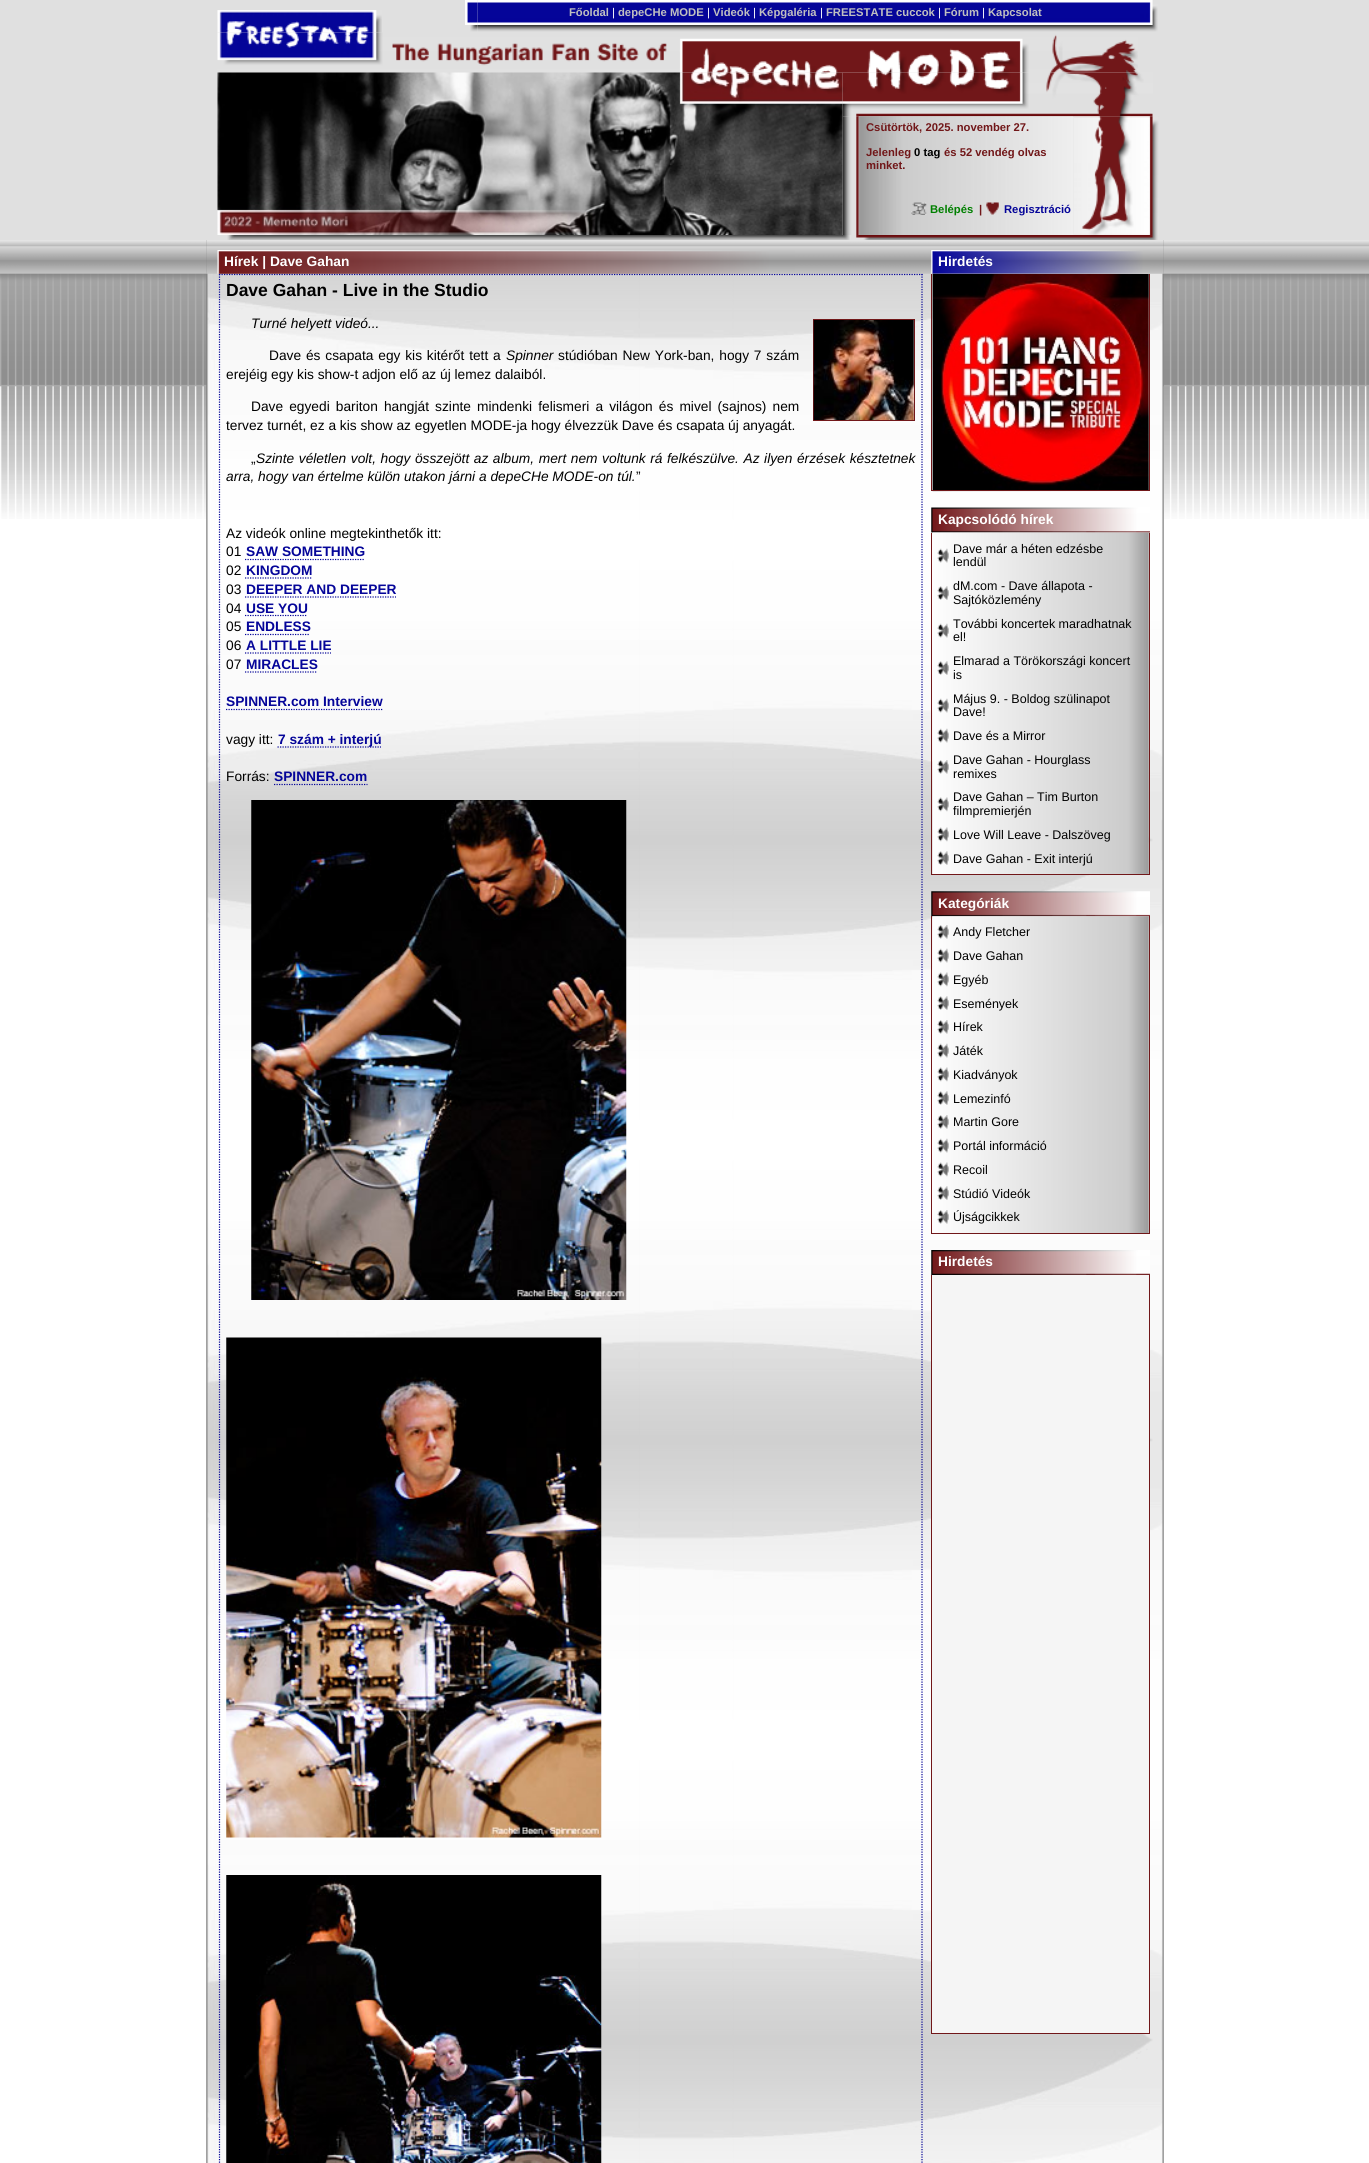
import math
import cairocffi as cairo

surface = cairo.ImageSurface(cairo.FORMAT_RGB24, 1369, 2163)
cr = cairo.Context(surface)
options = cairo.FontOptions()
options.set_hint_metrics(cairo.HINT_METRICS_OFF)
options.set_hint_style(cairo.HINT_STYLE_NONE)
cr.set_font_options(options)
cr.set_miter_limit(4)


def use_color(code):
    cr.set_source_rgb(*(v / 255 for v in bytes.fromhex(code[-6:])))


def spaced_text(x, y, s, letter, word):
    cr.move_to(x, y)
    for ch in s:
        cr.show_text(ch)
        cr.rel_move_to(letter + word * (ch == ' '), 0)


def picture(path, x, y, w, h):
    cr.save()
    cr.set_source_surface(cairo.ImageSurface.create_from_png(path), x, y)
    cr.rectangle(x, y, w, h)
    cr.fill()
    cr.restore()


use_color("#ffffff")
cr.paint()
use_color("#e0e0e0")
cr.rectangle(0, 0, 1369, 240)
cr.fill()
picture("img1.png", 217, 10, 165, 23)
picture("img2.png", 465, 0, 13, 25)
picture("img3.png", 477, 0, 663, 25)
cr.select_font_face("Liberation Sans", cairo.FONT_SLANT_NORMAL, cairo.FONT_WEIGHT_BOLD)
cr.set_font_size(11.25)
use_color("#c0c0c0")
cr.move_to(569, 16)
cr.show_text("Főoldal")
cr.select_font_face("Liberation Sans")
use_color("#ffffff")
cr.move_to(612, 16)
cr.show_text("|")
cr.select_font_face("Liberation Sans", cairo.FONT_SLANT_NORMAL, cairo.FONT_WEIGHT_BOLD)
use_color("#c0c0c0")
cr.move_to(618, 16)
cr.show_text("depeCHe MODE")
cr.select_font_face("Liberation Sans")
use_color("#ffffff")
cr.move_to(707, 16)
cr.show_text("|")
cr.select_font_face("Liberation Sans", cairo.FONT_SLANT_NORMAL, cairo.FONT_WEIGHT_BOLD)
use_color("#c0c0c0")
cr.move_to(713, 16)
cr.show_text("Videók")
cr.select_font_face("Liberation Sans")
use_color("#ffffff")
cr.move_to(753, 16)
cr.show_text("|")
cr.select_font_face("Liberation Sans", cairo.FONT_SLANT_NORMAL, cairo.FONT_WEIGHT_BOLD)
use_color("#c0c0c0")
cr.move_to(759, 16)
cr.show_text("Képgaléria")
cr.select_font_face("Liberation Sans")
use_color("#ffffff")
cr.move_to(820, 16)
cr.show_text("|")
cr.select_font_face("Liberation Sans", cairo.FONT_SLANT_NORMAL, cairo.FONT_WEIGHT_BOLD)
use_color("#c0c0c0")
cr.move_to(826, 16)
cr.show_text("FREESTATE cuccok")
cr.select_font_face("Liberation Sans")
use_color("#ffffff")
cr.move_to(938, 16)
cr.show_text("|")
cr.select_font_face("Liberation Sans", cairo.FONT_SLANT_NORMAL, cairo.FONT_WEIGHT_BOLD)
use_color("#c0c0c0")
cr.move_to(944, 16)
cr.show_text("Fórum")
cr.select_font_face("Liberation Sans")
use_color("#ffffff")
cr.move_to(982, 16)
cr.show_text("|")
cr.select_font_face("Liberation Sans", cairo.FONT_SLANT_NORMAL, cairo.FONT_WEIGHT_BOLD)
use_color("#c0c0c0")
cr.move_to(988, 16)
cr.show_text("Kapcsolat")
picture("img4.png", 1140, 0, 18, 25)
picture("img5.png", 470, 25, 8, 7)
picture("img6.png", 477, 25, 663, 7)
picture("img7.png", 1140, 25, 18, 7)
picture("img8.png", 217, 32, 921, 41)
picture("img10.png", 842, 72, 311, 45)
picture("img11.png", 842, 116, 17, 119)
picture("img9.png", 217, 72, 626, 163)
picture("img12.png", 858, 116, 216, 119)
use_color("#711719")
cr.move_to(866, 131)
cr.show_text("Csütörtök, 2025. november 27.")
cr.move_to(866, 156)
cr.show_text("Jelenleg")
use_color("#000000")
cr.move_to(914, 156)
cr.show_text("0 tag")
use_color("#711719")
cr.move_to(944, 156)
cr.show_text("és 52 vendég olvas")
cr.move_to(866, 169)
cr.show_text("minket.")
picture("img13.png", 911, 202, 16, 13)
use_color("#008000")
cr.move_to(930, 213)
cr.show_text("Belépés")
use_color("#711719")
cr.move_to(979, 213)
cr.show_text("|")
picture("img14.png", 986, 202, 13, 13)
use_color("#050599")
cr.move_to(1004, 213)
cr.show_text("Regisztráció")
picture("img15.png", 1074, 116, 85, 119)
picture("img16.png", 227, 235, 931, 5)
picture("img17.png", 0, 240, 1369, 279)
picture("img18.png", 206, 240, 958, 1923)
picture("img19.png", 206, 240, 958, 34)
cr.new_path()
cr.move_to(219, 274.5)
cr.line_to(922.5, 274.5)
cr.set_line_width(1.2)
cr.set_dash([1.25, 1.25])
cr.stroke()
picture("img20.png", 217, 250, 578, 24)
cr.set_font_size(13.75)
use_color("#ffffff")
cr.move_to(224, 266)
cr.show_text("Hírek | Dave Gahan")
picture("img21.png", 931, 250, 219, 24)
cr.move_to(938, 266)
cr.show_text("Hirdetés")
cr.new_path()
cr.move_to(922, 274)
cr.line_to(922, 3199)
use_color("#050599")
cr.stroke()
cr.new_path()
cr.move_to(219.5, 274)
cr.line_to(219.5, 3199)
cr.stroke()
cr.set_font_size(17.5)
use_color("#000000")
cr.move_to(226, 296)
cr.show_text("Dave Gahan - Live in the Studio")
cr.select_font_face("Liberation Sans", cairo.FONT_SLANT_ITALIC)
cr.set_font_size(13.75)
cr.move_to(251, 328)
cr.show_text("Turné helyett videó...")
cr.rectangle(813.5, 319.5, 101, 101)
use_color("#711719")
cr.set_line_width(1)
cr.set_dash([])
cr.stroke()
picture("img22.png", 813, 320, 101, 100)
cr.select_font_face("Liberation Sans")
use_color("#000000")
spaced_text(269, 360, "Dave és csapata egy kis kitérőt tett a", 0, 1)
cr.select_font_face("Liberation Sans", cairo.FONT_SLANT_ITALIC)
cr.move_to(506, 360)
cr.show_text("Spinner")
cr.select_font_face("Liberation Sans")
spaced_text(558, 360, "stúdióban New York-ban, hogy 7 szám", 0, 1)
cr.move_to(226, 379)
cr.show_text("erejéig egy kis show-t adjon elő az új lemez dalaiból.")
spaced_text(251, 411, "Dave egyedi bariton hangját szinte mindenki felismeri a világon és mivel (sajnos) nem", 0, 2.25)
cr.move_to(226, 430)
cr.show_text("tervez turnét, ez a kis show az egyetlen MODE-ja hogy élvezzük Dave és csapata új anyagát.")
cr.move_to(251, 463)
cr.show_text("„")
cr.select_font_face("Liberation Sans", cairo.FONT_SLANT_ITALIC)
spaced_text(256, 463, "Szinte véletlen volt, hogy összejött az album, mert nem voltunk rá felkészülve. Az ilyen érzések késztetnek", 0, 0.75)
cr.move_to(226, 481)
cr.show_text("arra, hogy van értelme külön utakon járni a depeCHe MODE-on túl.")
cr.select_font_face("Liberation Sans")
cr.move_to(636, 481)
cr.show_text("”")
cr.move_to(226, 538)
cr.show_text("Az videók online megtekinthetők itt:")
cr.move_to(226, 556)
cr.show_text("01")
cr.select_font_face("Liberation Sans", cairo.FONT_SLANT_NORMAL, cairo.FONT_WEIGHT_BOLD)
use_color("#050599")
cr.move_to(246, 556)
cr.show_text("SAW SOMETHING")
cr.new_path()
cr.move_to(245, 559.5)
cr.line_to(365, 559.5)
cr.set_line_width(1.2)
cr.set_dash([1.25, 1.25])
cr.stroke()
cr.select_font_face("Liberation Sans")
use_color("#000000")
cr.move_to(226, 575)
cr.show_text("02")
cr.select_font_face("Liberation Sans", cairo.FONT_SLANT_NORMAL, cairo.FONT_WEIGHT_BOLD)
use_color("#050599")
cr.move_to(246, 575)
cr.show_text("KINGDOM")
cr.new_path()
cr.move_to(245, 578)
cr.line_to(312.5, 578)
cr.stroke()
cr.select_font_face("Liberation Sans")
use_color("#000000")
cr.move_to(226, 594)
cr.show_text("03")
cr.select_font_face("Liberation Sans", cairo.FONT_SLANT_NORMAL, cairo.FONT_WEIGHT_BOLD)
use_color("#050599")
cr.move_to(246, 594)
cr.show_text("DEEPER AND DEEPER")
cr.new_path()
cr.move_to(245, 597)
cr.line_to(396, 597)
cr.stroke()
cr.select_font_face("Liberation Sans")
use_color("#000000")
cr.move_to(226, 613)
cr.show_text("04")
cr.select_font_face("Liberation Sans", cairo.FONT_SLANT_NORMAL, cairo.FONT_WEIGHT_BOLD)
use_color("#050599")
cr.move_to(246, 613)
cr.show_text("USE YOU")
cr.new_path()
cr.move_to(245, 615.5)
cr.line_to(307.5, 615.5)
cr.stroke()
cr.select_font_face("Liberation Sans")
use_color("#000000")
cr.move_to(226, 631)
cr.show_text("05")
cr.select_font_face("Liberation Sans", cairo.FONT_SLANT_NORMAL, cairo.FONT_WEIGHT_BOLD)
use_color("#050599")
cr.move_to(246, 631)
cr.show_text("ENDLESS")
cr.new_path()
cr.move_to(245, 634.5)
cr.line_to(310, 634.5)
cr.stroke()
cr.select_font_face("Liberation Sans")
use_color("#000000")
cr.move_to(226, 650)
cr.show_text("06")
cr.select_font_face("Liberation Sans", cairo.FONT_SLANT_NORMAL, cairo.FONT_WEIGHT_BOLD)
use_color("#050599")
cr.move_to(246, 650)
cr.show_text("A LITTLE LIE")
cr.new_path()
cr.move_to(245, 653)
cr.line_to(331, 653)
cr.stroke()
cr.select_font_face("Liberation Sans")
use_color("#000000")
cr.move_to(226, 669)
cr.show_text("07")
cr.select_font_face("Liberation Sans", cairo.FONT_SLANT_NORMAL, cairo.FONT_WEIGHT_BOLD)
use_color("#050599")
cr.move_to(246, 669)
cr.show_text("MIRACLES")
cr.new_path()
cr.move_to(245, 672)
cr.line_to(317.5, 672)
cr.stroke()
cr.move_to(226, 706)
cr.show_text("SPINNER.com Interview")
cr.new_path()
cr.move_to(226, 709.5)
cr.line_to(382.5, 709.5)
cr.stroke()
cr.select_font_face("Liberation Sans")
use_color("#000000")
cr.move_to(226, 744)
cr.show_text("vagy itt:")
cr.new_path()
cr.move_to(277.5, 747)
cr.line_to(381, 747)
use_color("#050599")
cr.stroke()
cr.select_font_face("Liberation Sans", cairo.FONT_SLANT_NORMAL, cairo.FONT_WEIGHT_BOLD)
cr.move_to(278, 744)
cr.show_text("7 szám + interjú")
cr.select_font_face("Liberation Sans")
use_color("#000000")
cr.move_to(226, 781)
cr.show_text("Forrás:")
cr.select_font_face("Liberation Sans", cairo.FONT_SLANT_NORMAL, cairo.FONT_WEIGHT_BOLD)
use_color("#050599")
cr.move_to(274, 781)
cr.show_text("SPINNER.com")
cr.new_path()
cr.move_to(274, 784.5)
cr.line_to(367.5, 784.5)
cr.stroke()
picture("img23.png", 251, 800, 376, 500)
picture("img24.png", 226, 1337, 376, 501)
picture("img25.png", 226, 1875, 376, 288)
picture("img26.png", 932, 273, 217, 219)
use_color("#711719")
cr.rectangle(1149, 274, 1, 217)
cr.fill()
cr.rectangle(931, 490, 219, 1)
cr.fill()
cr.rectangle(931, 274, 1, 217)
cr.fill()
picture("img27.png", 932, 273, 217, 217)
picture("img28.png", 931, 507, 219, 26)
use_color("#ffffff")
cr.move_to(938, 524)
cr.show_text("Kapcsolódó hírek")
picture("img29.png", 932, 532, 217, 342)
use_color("#711719")
cr.rectangle(1149, 533, 1, 342)
cr.fill()
cr.rectangle(931, 874, 219, 1)
cr.fill()
cr.rectangle(931, 533, 1, 342)
cr.fill()
picture("img30.png", 937, 548, 12, 15)
cr.select_font_face("Liberation Sans")
cr.set_font_size(12.5)
use_color("#000000")
cr.move_to(953, 553)
cr.show_text("Dave már a héten edzésbe")
cr.move_to(953, 566)
cr.show_text("lendül")
picture("img31.png", 937, 586, 12, 14)
cr.move_to(953, 590)
cr.show_text("dM.com - Dave állapota -")
cr.move_to(953, 604)
cr.show_text("Sajtóközlemény")
picture("img30.png", 937, 623, 12, 15)
cr.move_to(953, 628)
cr.show_text("További koncertek maradhatnak")
cr.move_to(953, 641)
cr.show_text("el!")
picture("img32.png", 937, 661, 12, 14)
cr.move_to(953, 665)
cr.show_text("Elmarad a Törökországi koncert")
cr.move_to(953, 679)
cr.show_text("is")
picture("img30.png", 937, 698, 12, 15)
cr.move_to(953, 703)
cr.show_text("Május 9. - Boldog szülinapot")
cr.move_to(953, 716)
cr.show_text("Dave!")
picture("img30.png", 937, 728, 12, 15)
cr.move_to(953, 740)
cr.show_text("Dave és a Mirror")
picture("img33.png", 937, 760, 12, 14)
cr.move_to(953, 764)
cr.show_text("Dave Gahan - Hourglass")
cr.move_to(953, 778)
cr.show_text("remixes")
picture("img34.png", 937, 797, 12, 15)
cr.move_to(953, 801)
cr.show_text("Dave Gahan – Tim Burton")
cr.move_to(953, 815)
cr.show_text("filmpremierjén")
picture("img34.png", 937, 827, 12, 15)
cr.move_to(953, 839)
cr.show_text("Love Will Leave - Dalszöveg")
picture("img32.png", 937, 851, 12, 14)
cr.move_to(953, 863)
cr.show_text("Dave Gahan - Exit interjú")
picture("img35.png", 931, 891, 219, 26)
cr.select_font_face("Liberation Sans", cairo.FONT_SLANT_NORMAL, cairo.FONT_WEIGHT_BOLD)
cr.set_font_size(13.75)
use_color("#ffffff")
cr.move_to(938, 908)
cr.show_text("Kategóriák")
picture("img36.png", 932, 916, 217, 317)
use_color("#711719")
cr.rectangle(1149, 916, 1, 318)
cr.fill()
cr.rectangle(931, 1233, 219, 1)
cr.fill()
cr.rectangle(931, 916, 1, 318)
cr.fill()
picture("img33.png", 937, 925, 12, 14)
cr.select_font_face("Liberation Sans")
cr.set_font_size(12.5)
use_color("#000000")
cr.move_to(953, 936)
cr.show_text("Andy Fletcher")
picture("img30.png", 937, 948, 12, 15)
cr.move_to(953, 960)
cr.show_text("Dave Gahan")
picture("img34.png", 937, 972, 12, 15)
cr.move_to(953, 984)
cr.show_text("Egyéb")
picture("img32.png", 937, 996, 12, 14)
cr.move_to(953, 1008)
cr.show_text("Események")
picture("img33.png", 937, 1020, 12, 14)
cr.move_to(953, 1031)
cr.show_text("Hírek")
picture("img30.png", 937, 1043, 12, 15)
cr.move_to(953, 1055)
cr.show_text("Játék")
picture("img34.png", 937, 1067, 12, 15)
cr.move_to(953, 1079)
cr.show_text("Kiadványok")
picture("img32.png", 937, 1091, 12, 14)
cr.move_to(953, 1103)
cr.show_text("Lemezinfó")
picture("img33.png", 937, 1115, 12, 14)
cr.move_to(953, 1126)
cr.show_text("Martin Gore")
picture("img30.png", 937, 1138, 12, 15)
cr.move_to(953, 1150)
cr.show_text("Portál információ")
picture("img34.png", 937, 1162, 12, 15)
cr.move_to(953, 1174)
cr.show_text("Recoil")
picture("img32.png", 937, 1186, 12, 14)
cr.move_to(953, 1198)
cr.show_text("Stúdió Videók")
picture("img33.png", 937, 1210, 12, 14)
cr.move_to(953, 1221)
cr.show_text("Újságcikkek")
picture("img37.png", 931, 1250, 219, 25)
cr.select_font_face("Liberation Sans", cairo.FONT_SLANT_NORMAL, cairo.FONT_WEIGHT_BOLD)
cr.set_font_size(13.75)
use_color("#ffffff")
cr.move_to(938, 1266)
cr.show_text("Hirdetés")
use_color("#f5f5f5")
cr.rectangle(932, 1275, 217, 758)
cr.fill()
use_color("#711719")
cr.rectangle(1149, 1275, 1, 759)
cr.fill()
cr.rectangle(931, 2033, 219, 1)
cr.fill()
cr.rectangle(931, 1275, 1, 759)
cr.fill()
surface.write_to_png("result.png")
